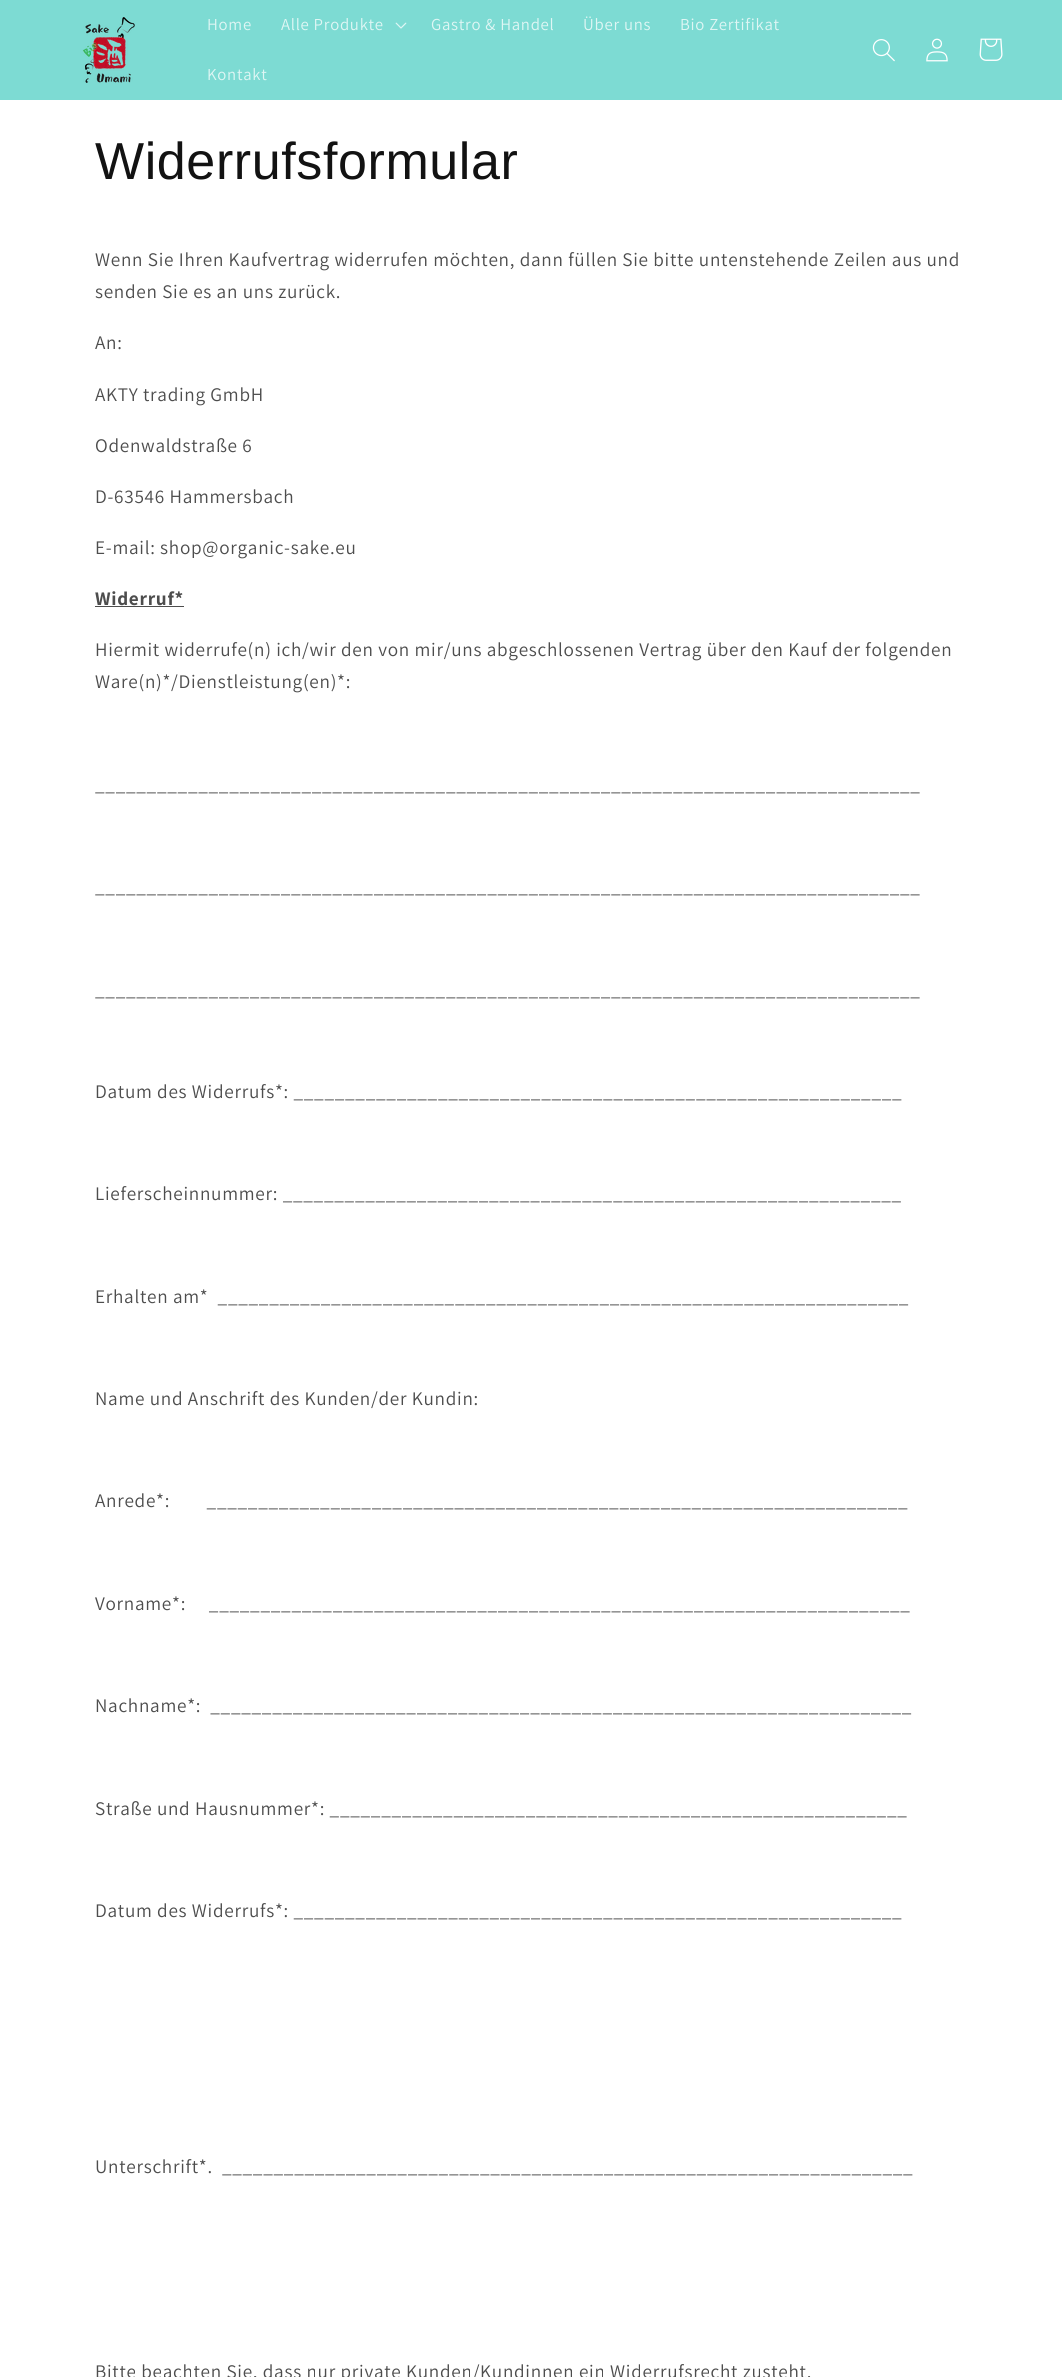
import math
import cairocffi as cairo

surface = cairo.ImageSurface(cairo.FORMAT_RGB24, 1062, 2377)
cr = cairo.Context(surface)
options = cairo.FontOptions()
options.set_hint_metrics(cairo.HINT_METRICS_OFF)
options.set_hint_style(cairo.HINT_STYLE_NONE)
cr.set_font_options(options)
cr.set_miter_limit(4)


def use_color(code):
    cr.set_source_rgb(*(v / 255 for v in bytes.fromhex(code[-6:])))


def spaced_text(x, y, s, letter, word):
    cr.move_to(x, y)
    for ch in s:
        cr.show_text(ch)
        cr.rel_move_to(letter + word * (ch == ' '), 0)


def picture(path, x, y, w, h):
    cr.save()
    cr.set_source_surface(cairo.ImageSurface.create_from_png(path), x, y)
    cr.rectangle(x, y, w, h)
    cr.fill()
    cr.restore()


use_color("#ffffff")
cr.paint()
use_color("#7ddbd3")
cr.rectangle(0, 0, 1062, 100)
cr.fill()
picture("img1.png", 82, 17, 53, 66)
cr.select_font_face("Assistant")
cr.set_font_size(16.75)
use_color("#dff6f4")
spaced_text(207, 30, "Home", 0.72, 0)
spaced_text(281, 30, "Alle Produkte", 0.72, 0)
picture("img2.png", 395, 22, 12, 7)
spaced_text(431, 30, "Gastro & Handel", 0.72, 0)
spaced_text(583, 30, "Über uns", 0.72, 0)
spaced_text(680, 30, "Bio Zertifikat", 0.72, 0)
spaced_text(207, 80, "Kontakt", 0.72, 0)
picture("img3.png", 872, 39, 23, 23)
picture("img4.png", 926, 38, 22, 24)
picture("img5.png", 979, 38, 24, 23)
cr.select_font_face("Arimo")
cr.set_font_size(52)
use_color("#121212")
spaced_text(95, 179, "Widerrufsformular", 0.6, 0)
cr.select_font_face("Assistant")
cr.set_font_size(19.2)
use_color("#4d4d4d")
spaced_text(95, 266, "Wenn Sie Ihren Kaufvertrag widerrufen möchten, dann füllen Sie bitte untenstehende Zeilen aus und", 0.72, 0)
spaced_text(95, 298, "senden Sie es an uns zurück.", 0.72, 0)
spaced_text(95, 349, "An:", 0.72, 0)
spaced_text(95, 401, "AKTY trading GmbH", 0.72, 0)
spaced_text(95, 452, "Odenwaldstraße 6", 0.72, 0)
spaced_text(95, 503, "D-63546 Hammersbach", 0.72, 0)
spaced_text(95, 554, "E-mail: shop@organic-sake.eu", 0.72, 0)
cr.select_font_face("Assistant", cairo.FONT_SLANT_NORMAL, cairo.FONT_WEIGHT_BOLD)
spaced_text(95, 605, "Widerruf*", 0.72, 0)
cr.rectangle(95, 606, 89, 1)
cr.fill()
cr.select_font_face("Assistant")
spaced_text(95, 656, "Hiermit widerrufe(n) ich/wir den von mir/uns abgeschlossenen Vertrag über den Kauf der folgenden", 0.72, 0)
spaced_text(95, 688, "Ware(n)*/Dienstleistung(en)*:", 0.72, 0)
spaced_text(95, 791, "________________________________________________________________________________", 0.72, 0)
spaced_text(95, 893, "________________________________________________________________________________", 0.72, 0)
spaced_text(95, 996, "________________________________________________________________________________", 0.72, 0)
spaced_text(95, 1098, "Datum des Widerrufs*: ___________________________________________________________", 0.72, 0)
spaced_text(95, 1200, "Lieferscheinnummer: ____________________________________________________________", 0.72, 0)
spaced_text(95, 1303, "Erhalten am*  ___________________________________________________________________", 0.72, 0)
spaced_text(95, 1405, "Name und Anschrift des Kunden/der Kundin:", 0.72, 0)
spaced_text(95, 1507, "Anrede*:        ____________________________________________________________________", 0.72, 0)
spaced_text(95, 1610, "Vorname*:     ____________________________________________________________________", 0.72, 0)
spaced_text(95, 1712, "Nachname*:  ____________________________________________________________________", 0.72, 0)
spaced_text(95, 1815, "Straße und Hausnummer*: ________________________________________________________", 0.72, 0)
spaced_text(95, 1917, "Datum des Widerrufs*: ___________________________________________________________", 0.72, 0)
spaced_text(95, 2173, "Unterschrift*.  ___________________________________________________________________", 0.72, 0)
spaced_text(95, 2378, "Bitte beachten Sie, dass nur private Kunden/Kundinnen ein Widerrufsrecht zusteht.", 0.72, 0)
surface.write_to_png("result.png")
